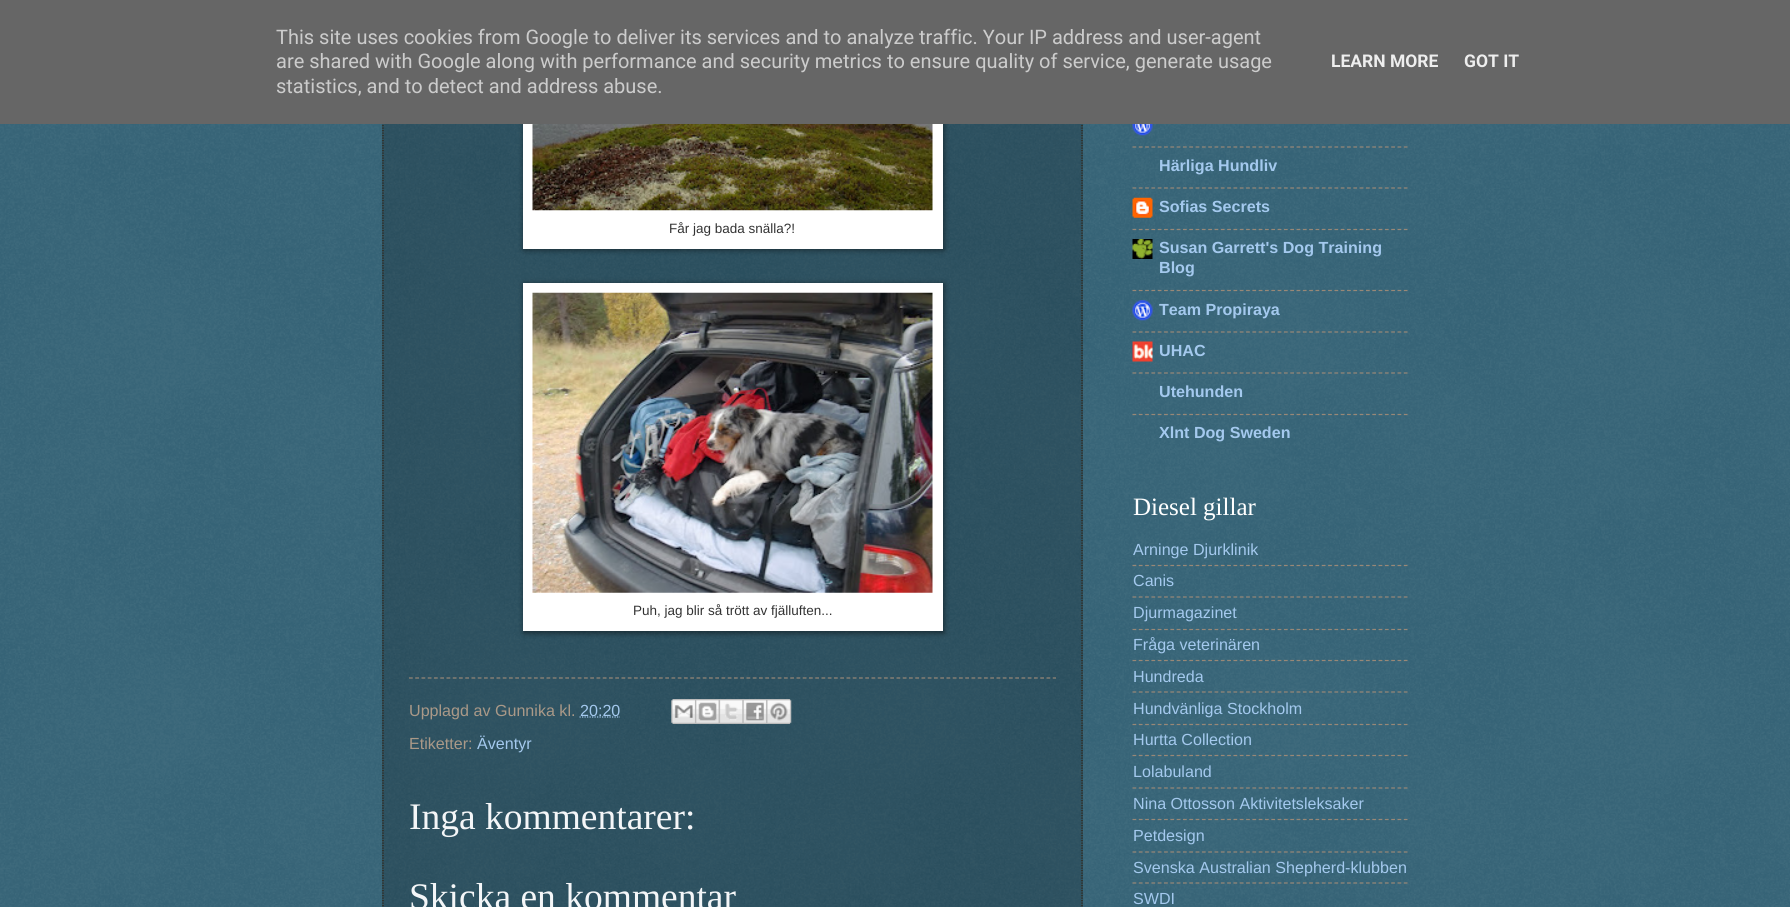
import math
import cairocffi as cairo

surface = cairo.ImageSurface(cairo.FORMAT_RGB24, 1790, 907)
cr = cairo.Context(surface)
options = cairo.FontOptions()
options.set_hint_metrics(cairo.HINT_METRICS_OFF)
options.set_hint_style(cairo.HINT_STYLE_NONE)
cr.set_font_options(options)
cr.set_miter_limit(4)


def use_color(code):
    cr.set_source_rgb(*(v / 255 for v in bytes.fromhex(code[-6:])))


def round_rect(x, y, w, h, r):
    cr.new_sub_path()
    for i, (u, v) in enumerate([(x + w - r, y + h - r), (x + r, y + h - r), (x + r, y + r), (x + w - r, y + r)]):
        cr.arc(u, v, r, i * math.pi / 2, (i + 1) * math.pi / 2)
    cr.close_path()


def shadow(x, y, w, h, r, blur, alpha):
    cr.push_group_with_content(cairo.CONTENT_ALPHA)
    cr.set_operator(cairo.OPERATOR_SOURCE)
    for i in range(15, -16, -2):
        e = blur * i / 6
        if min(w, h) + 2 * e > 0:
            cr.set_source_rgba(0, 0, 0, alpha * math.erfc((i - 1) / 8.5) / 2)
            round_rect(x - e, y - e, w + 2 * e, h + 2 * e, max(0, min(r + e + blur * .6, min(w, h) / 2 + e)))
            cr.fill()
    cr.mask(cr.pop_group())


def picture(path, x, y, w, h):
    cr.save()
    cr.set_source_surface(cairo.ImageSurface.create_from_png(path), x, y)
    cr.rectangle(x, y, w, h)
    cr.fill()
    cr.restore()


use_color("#194d63")
cr.paint()
picture("img1.png", 0, 124, 1790, 783)
cr.set_source_rgba(0, 0, 0, 0.2)
cr.rectangle(382, 124, 701, 783)
cr.fill()
cr.new_path()
cr.move_to(1082, -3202.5)
cr.line_to(1082, 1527.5)
use_color("#332211")
cr.set_line_width(1.2)
cr.set_dash([1.25, 1.25])
cr.stroke()
cr.new_path()
cr.move_to(383, -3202.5)
cr.line_to(383, 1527.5)
cr.stroke()
use_color("#000000")
shadow(524, -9, 420, 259, 0, 3, 0.5)
use_color("#666666")
cr.rectangle(0, 0, 1790, 124)
cr.fill()
cr.select_font_face("Roboto")
cr.set_font_size(20)
use_color("#cccccc")
cr.move_to(276, 44)
cr.show_text("This site uses cookies from Google to deliver its services and to analyze traffic. Your IP address and user-agent")
cr.move_to(276, 68)
cr.show_text("are shared with Google along with performance and security metrics to ensure quality of service, generate usage")
cr.move_to(276, 93)
cr.show_text("statistics, and to detect and address abuse.")
cr.select_font_face("Roboto", cairo.FONT_SLANT_NORMAL, cairo.FONT_WEIGHT_BOLD)
cr.set_font_size(17.5)
use_color("#eeeeee")
cr.move_to(1331, 67)
cr.show_text("LEARN MORE")
cr.move_to(1464, 67)
cr.show_text("GOT IT")
use_color("#ffffff")
cr.rectangle(523, 124, 420, 125)
cr.fill()
picture("img2.png", 532, 124, 401, 87)
cr.select_font_face("Liberation Sans")
cr.set_font_size(13.5)
use_color("#333333")
cr.move_to(669, 233)
cr.show_text("Får jag bada snälla?!")
use_color("#000000")
shadow(524, 284, 420, 349, 0, 3, 0.5)
use_color("#ffffff")
cr.rectangle(523, 283, 420, 348)
cr.fill()
picture("img3.png", 532, 292, 401, 301)
use_color("#333333")
cr.move_to(633, 615)
cr.show_text("Puh, jag blir så trött av fjälluften...")
cr.new_path()
cr.move_to(409, 678)
cr.line_to(1056, 678)
use_color("#998877")
cr.set_dash([3.75, 2.5])
cr.stroke()
cr.set_font_size(16.1)
use_color("#aa9988")
cr.move_to(409, 716)
cr.show_text("Upplagd av Gunnika kl.")
cr.new_path()
cr.move_to(579.5, 717)
cr.line_to(620, 717)
use_color("#a4c9ee")
cr.set_dash([1.25, 1.25])
cr.stroke()
cr.move_to(580, 716)
cr.show_text("20:20")
picture("img4.png", 671, 699, 24, 25)
picture("img5.png", 695, 699, 24, 25)
picture("img6.png", 718, 699, 25, 25)
picture("img7.png", 742, 699, 25, 25)
picture("img8.png", 766, 699, 26, 25)
use_color("#aa9988")
cr.move_to(409, 749)
cr.show_text("Etiketter:")
use_color("#a4c9ee")
cr.move_to(477, 749)
cr.show_text("Äventyr")
cr.select_font_face("Liberation Serif")
cr.set_font_size(37.5)
use_color("#f4f6f8")
cr.move_to(409, 829)
cr.show_text("Inga kommentarer:")
cr.move_to(409, 909)
cr.show_text("Skicka en kommentar")
picture("img9.png", 1132, 124, 21, 12)
cr.new_path()
cr.move_to(1132.5, 147)
cr.line_to(1407.5, 147)
use_color("#998877")
cr.set_dash([3.75, 2.56])
cr.stroke()
cr.select_font_face("Liberation Sans", cairo.FONT_SLANT_NORMAL, cairo.FONT_WEIGHT_BOLD)
cr.set_font_size(16.1)
use_color("#a4c9ee")
cr.move_to(1159, 171)
cr.show_text("Härliga Hundliv")
cr.new_path()
cr.move_to(1132.5, 188)
cr.line_to(1407.5, 188)
use_color("#998877")
cr.stroke()
picture("img10.png", 1132, 197, 21, 21)
use_color("#a4c9ee")
cr.move_to(1159, 212)
cr.show_text("Sofias Secrets")
cr.new_path()
cr.move_to(1132.5, 229.5)
cr.line_to(1407.5, 229.5)
use_color("#998877")
cr.stroke()
picture("img11.png", 1132, 239, 21, 20)
use_color("#a4c9ee")
cr.move_to(1159, 253)
cr.show_text("Susan Garrett's Dog Training")
cr.move_to(1159, 273)
cr.show_text("Blog")
cr.new_path()
cr.move_to(1132.5, 290.5)
cr.line_to(1407.5, 290.5)
use_color("#998877")
cr.stroke()
picture("img12.png", 1132, 300, 21, 21)
use_color("#a4c9ee")
cr.move_to(1159, 315)
cr.show_text("Team Propiraya")
cr.new_path()
cr.move_to(1132.5, 332)
cr.line_to(1407.5, 332)
use_color("#998877")
cr.stroke()
picture("img13.png", 1132, 341, 21, 21)
use_color("#a4c9ee")
cr.move_to(1159, 356)
cr.show_text("UHAC")
cr.new_path()
cr.move_to(1132.5, 373)
cr.line_to(1407.5, 373)
use_color("#998877")
cr.stroke()
use_color("#a4c9ee")
cr.move_to(1159, 397)
cr.show_text("Utehunden")
cr.new_path()
cr.move_to(1132.5, 414.5)
cr.line_to(1407.5, 414.5)
use_color("#998877")
cr.stroke()
use_color("#a4c9ee")
cr.move_to(1159, 438)
cr.show_text("Xlnt Dog Sweden")
cr.select_font_face("Liberation Serif")
cr.set_font_size(25)
use_color("#ffffff")
cr.move_to(1133, 515)
cr.show_text("Diesel gillar")
cr.select_font_face("Liberation Sans")
cr.set_font_size(16.1)
use_color("#a4c9ee")
cr.move_to(1133, 555)
cr.show_text("Arninge Djurklinik")
cr.new_path()
cr.move_to(1132.5, 565.5)
cr.line_to(1407.5, 565.5)
use_color("#998877")
cr.stroke()
use_color("#a4c9ee")
cr.move_to(1133, 586)
cr.show_text("Canis")
cr.new_path()
cr.move_to(1132.5, 597)
cr.line_to(1407.5, 597)
use_color("#998877")
cr.stroke()
use_color("#a4c9ee")
cr.move_to(1133, 618)
cr.show_text("Djurmagazinet")
cr.new_path()
cr.move_to(1132.5, 629.5)
cr.line_to(1407.5, 629.5)
use_color("#998877")
cr.stroke()
use_color("#a4c9ee")
cr.move_to(1133, 650)
cr.show_text("Fråga veterinären")
cr.new_path()
cr.move_to(1132.5, 660.5)
cr.line_to(1407.5, 660.5)
use_color("#998877")
cr.stroke()
use_color("#a4c9ee")
cr.move_to(1133, 682)
cr.show_text("Hundreda")
cr.new_path()
cr.move_to(1132.5, 692)
cr.line_to(1407.5, 692)
use_color("#998877")
cr.stroke()
use_color("#a4c9ee")
cr.move_to(1133, 714)
cr.show_text("Hundvänliga Stockholm")
cr.new_path()
cr.move_to(1132.5, 724.5)
cr.line_to(1407.5, 724.5)
use_color("#998877")
cr.stroke()
use_color("#a4c9ee")
cr.move_to(1133, 745)
cr.show_text("Hurtta Collection")
cr.new_path()
cr.move_to(1132.5, 755.5)
cr.line_to(1407.5, 755.5)
use_color("#998877")
cr.stroke()
use_color("#a4c9ee")
cr.move_to(1133, 777)
cr.show_text("Lolabuland")
cr.new_path()
cr.move_to(1132.5, 788)
cr.line_to(1407.5, 788)
use_color("#998877")
cr.stroke()
use_color("#a4c9ee")
cr.move_to(1133, 809)
cr.show_text("Nina Ottosson Aktivitetsleksaker")
cr.new_path()
cr.move_to(1132.5, 819.5)
cr.line_to(1407.5, 819.5)
use_color("#998877")
cr.stroke()
use_color("#a4c9ee")
cr.move_to(1133, 841)
cr.show_text("Petdesign")
cr.new_path()
cr.move_to(1132.5, 852)
cr.line_to(1407.5, 852)
use_color("#998877")
cr.stroke()
use_color("#a4c9ee")
cr.move_to(1133, 873)
cr.show_text("Svenska Australian Shepherd-klubben")
cr.new_path()
cr.move_to(1132.5, 883)
cr.line_to(1407.5, 883)
use_color("#998877")
cr.stroke()
use_color("#a4c9ee")
cr.move_to(1133, 904)
cr.show_text("SWDI")
surface.write_to_png("result.png")
